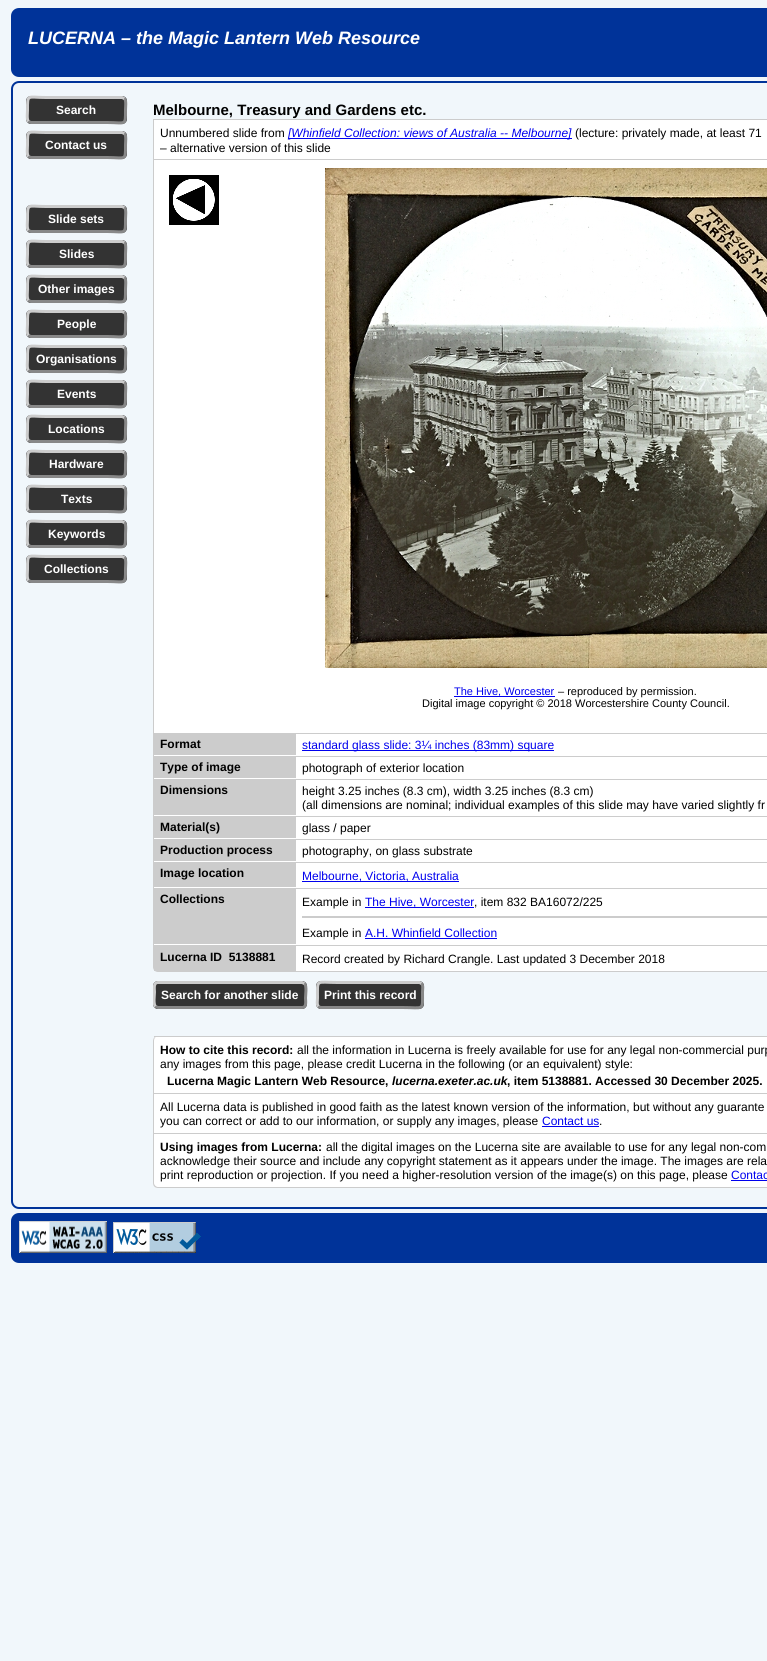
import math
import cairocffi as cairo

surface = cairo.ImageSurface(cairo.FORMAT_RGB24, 767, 1661)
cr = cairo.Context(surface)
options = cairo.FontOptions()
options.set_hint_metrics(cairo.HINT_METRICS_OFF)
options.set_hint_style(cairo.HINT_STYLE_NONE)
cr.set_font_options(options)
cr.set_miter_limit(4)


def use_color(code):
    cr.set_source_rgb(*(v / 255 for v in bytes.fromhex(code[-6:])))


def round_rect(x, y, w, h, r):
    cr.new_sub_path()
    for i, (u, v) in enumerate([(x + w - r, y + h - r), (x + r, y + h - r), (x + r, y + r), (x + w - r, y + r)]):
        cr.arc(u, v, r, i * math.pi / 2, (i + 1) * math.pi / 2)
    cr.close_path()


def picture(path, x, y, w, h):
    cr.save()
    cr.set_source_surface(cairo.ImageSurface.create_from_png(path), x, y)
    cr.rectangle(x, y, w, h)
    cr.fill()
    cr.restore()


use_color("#f1f7fb")
cr.paint()
use_color("#003399")
round_rect(12, 9, 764, 67, 7)
cr.fill_preserve()
cr.stroke()
cr.select_font_face("Liberation Sans", cairo.FONT_SLANT_ITALIC, cairo.FONT_WEIGHT_BOLD)
cr.set_font_size(18)
use_color("#ffffff")
cr.move_to(28, 44)
cr.show_text("LUCERNA – the Magic Lantern Web Resource")
round_rect(12, 82, 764, 1126, 7)
use_color("#003399")
cr.stroke()
use_color("#333333")
round_rect(26, 96, 101, 28, 5)
cr.fill()
cr.new_path()
cr.move_to(124.5, 98.5)
cr.curve_to(126.5, 100.5, 125.5, 107.5, 125.5, 110)
cr.curve_to(125.5, 126.5, 126, 122.5, 107, 122.5)
cr.line_to(31, 122.5)
cr.line_to(28.5, 121.5)
use_color("#888888")
cr.set_line_width(3)
cr.stroke()
cr.new_path()
cr.move_to(28.5, 121.5)
cr.curve_to(26.5, 119.5, 27.5, 112.5, 27.5, 110)
cr.curve_to(27.5, 93.5, 27, 97.5, 46, 97.5)
cr.line_to(122, 97.5)
cr.line_to(124.5, 98.5)
use_color("#cccccc")
cr.stroke()
cr.select_font_face("Liberation Sans", cairo.FONT_SLANT_NORMAL, cairo.FONT_WEIGHT_BOLD)
cr.set_font_size(12)
use_color("#ffffff")
cr.move_to(56, 114)
cr.show_text("Search")
use_color("#333333")
round_rect(26, 131, 101, 28, 5)
cr.fill()
cr.new_path()
cr.move_to(124.5, 133.5)
cr.curve_to(126.5, 135.5, 125.5, 142.5, 125.5, 145)
cr.curve_to(125.5, 161.5, 126, 157.5, 107, 157.5)
cr.line_to(31, 157.5)
cr.line_to(28.5, 156.5)
use_color("#888888")
cr.stroke()
cr.new_path()
cr.move_to(28.5, 156.5)
cr.curve_to(26.5, 154.5, 27.5, 147.5, 27.5, 145)
cr.curve_to(27.5, 128.5, 27, 132.5, 46, 132.5)
cr.line_to(122, 132.5)
cr.line_to(124.5, 133.5)
use_color("#cccccc")
cr.stroke()
use_color("#ffffff")
cr.move_to(45, 149)
cr.show_text("Contact us")
use_color("#333333")
round_rect(26, 205, 101, 28, 5)
cr.fill()
cr.new_path()
cr.move_to(124.5, 207.5)
cr.curve_to(126.5, 209.5, 125.5, 216.5, 125.5, 219)
cr.curve_to(125.5, 235.5, 126, 231.5, 107, 231.5)
cr.line_to(31, 231.5)
cr.line_to(28.5, 230.5)
use_color("#888888")
cr.stroke()
cr.new_path()
cr.move_to(28.5, 230.5)
cr.curve_to(26.5, 228.5, 27.5, 221.5, 27.5, 219)
cr.curve_to(27.5, 202.5, 27, 206.5, 46, 206.5)
cr.line_to(122, 206.5)
cr.line_to(124.5, 207.5)
use_color("#cccccc")
cr.stroke()
use_color("#ffffff")
cr.move_to(48, 223)
cr.show_text("Slide sets")
use_color("#333333")
round_rect(26, 240, 101, 28, 5)
cr.fill()
cr.new_path()
cr.move_to(124.5, 242.5)
cr.curve_to(126.5, 244.5, 125.5, 251.5, 125.5, 254)
cr.curve_to(125.5, 270.5, 126, 266.5, 107, 266.5)
cr.line_to(31, 266.5)
cr.line_to(28.5, 265.5)
use_color("#888888")
cr.stroke()
cr.new_path()
cr.move_to(28.5, 265.5)
cr.curve_to(26.5, 263.5, 27.5, 256.5, 27.5, 254)
cr.curve_to(27.5, 237.5, 27, 241.5, 46, 241.5)
cr.line_to(122, 241.5)
cr.line_to(124.5, 242.5)
use_color("#cccccc")
cr.stroke()
use_color("#ffffff")
cr.move_to(59, 258)
cr.show_text("Slides")
use_color("#333333")
round_rect(26, 275, 101, 28, 5)
cr.fill()
cr.new_path()
cr.move_to(124.5, 277.5)
cr.curve_to(126.5, 279.5, 125.5, 286.5, 125.5, 289)
cr.curve_to(125.5, 305.5, 126, 301.5, 107, 301.5)
cr.line_to(31, 301.5)
cr.line_to(28.5, 300.5)
use_color("#888888")
cr.stroke()
cr.new_path()
cr.move_to(28.5, 300.5)
cr.curve_to(26.5, 298.5, 27.5, 291.5, 27.5, 289)
cr.curve_to(27.5, 272.5, 27, 276.5, 46, 276.5)
cr.line_to(122, 276.5)
cr.line_to(124.5, 277.5)
use_color("#cccccc")
cr.stroke()
use_color("#ffffff")
cr.move_to(38, 293)
cr.show_text("Other images")
use_color("#333333")
round_rect(26, 310, 101, 28, 5)
cr.fill()
cr.new_path()
cr.move_to(124.5, 312.5)
cr.curve_to(126.5, 314.5, 125.5, 321.5, 125.5, 324)
cr.curve_to(125.5, 340.5, 126, 336.5, 107, 336.5)
cr.line_to(31, 336.5)
cr.line_to(28.5, 335.5)
use_color("#888888")
cr.stroke()
cr.new_path()
cr.move_to(28.5, 335.5)
cr.curve_to(26.5, 333.5, 27.5, 326.5, 27.5, 324)
cr.curve_to(27.5, 307.5, 27, 311.5, 46, 311.5)
cr.line_to(122, 311.5)
cr.line_to(124.5, 312.5)
use_color("#cccccc")
cr.stroke()
use_color("#ffffff")
cr.move_to(57, 328)
cr.show_text("People")
use_color("#333333")
round_rect(26, 345, 101, 28, 5)
cr.fill()
cr.new_path()
cr.move_to(124.5, 347.5)
cr.curve_to(126.5, 349.5, 125.5, 356.5, 125.5, 359)
cr.curve_to(125.5, 375.5, 126, 371.5, 107, 371.5)
cr.line_to(31, 371.5)
cr.line_to(28.5, 370.5)
use_color("#888888")
cr.stroke()
cr.new_path()
cr.move_to(28.5, 370.5)
cr.curve_to(26.5, 368.5, 27.5, 361.5, 27.5, 359)
cr.curve_to(27.5, 342.5, 27, 346.5, 46, 346.5)
cr.line_to(122, 346.5)
cr.line_to(124.5, 347.5)
use_color("#cccccc")
cr.stroke()
use_color("#ffffff")
cr.move_to(36, 363)
cr.show_text("Organisations")
use_color("#333333")
round_rect(26, 380, 101, 28, 5)
cr.fill()
cr.new_path()
cr.move_to(124.5, 382.5)
cr.curve_to(126.5, 384.5, 125.5, 391.5, 125.5, 394)
cr.curve_to(125.5, 410.5, 126, 406.5, 107, 406.5)
cr.line_to(31, 406.5)
cr.line_to(28.5, 405.5)
use_color("#888888")
cr.stroke()
cr.new_path()
cr.move_to(28.5, 405.5)
cr.curve_to(26.5, 403.5, 27.5, 396.5, 27.5, 394)
cr.curve_to(27.5, 377.5, 27, 381.5, 46, 381.5)
cr.line_to(122, 381.5)
cr.line_to(124.5, 382.5)
use_color("#cccccc")
cr.stroke()
use_color("#ffffff")
cr.move_to(57, 398)
cr.show_text("Events")
use_color("#333333")
round_rect(26, 415, 101, 28, 5)
cr.fill()
cr.new_path()
cr.move_to(124.5, 417.5)
cr.curve_to(126.5, 419.5, 125.5, 426.5, 125.5, 429)
cr.curve_to(125.5, 445.5, 126, 441.5, 107, 441.5)
cr.line_to(31, 441.5)
cr.line_to(28.5, 440.5)
use_color("#888888")
cr.stroke()
cr.new_path()
cr.move_to(28.5, 440.5)
cr.curve_to(26.5, 438.5, 27.5, 431.5, 27.5, 429)
cr.curve_to(27.5, 412.5, 27, 416.5, 46, 416.5)
cr.line_to(122, 416.5)
cr.line_to(124.5, 417.5)
use_color("#cccccc")
cr.stroke()
use_color("#ffffff")
cr.move_to(48, 433)
cr.show_text("Locations")
use_color("#333333")
round_rect(26, 450, 101, 28, 5)
cr.fill()
cr.new_path()
cr.move_to(124.5, 452.5)
cr.curve_to(126.5, 454.5, 125.5, 461.5, 125.5, 464)
cr.curve_to(125.5, 480.5, 126, 476.5, 107, 476.5)
cr.line_to(31, 476.5)
cr.line_to(28.5, 475.5)
use_color("#888888")
cr.stroke()
cr.new_path()
cr.move_to(28.5, 475.5)
cr.curve_to(26.5, 473.5, 27.5, 466.5, 27.5, 464)
cr.curve_to(27.5, 447.5, 27, 451.5, 46, 451.5)
cr.line_to(122, 451.5)
cr.line_to(124.5, 452.5)
use_color("#cccccc")
cr.stroke()
use_color("#ffffff")
cr.move_to(49, 468)
cr.show_text("Hardware")
use_color("#333333")
round_rect(26, 485, 101, 28, 5)
cr.fill()
cr.new_path()
cr.move_to(124.5, 487.5)
cr.curve_to(126.5, 489.5, 125.5, 496.5, 125.5, 499)
cr.curve_to(125.5, 515.5, 126, 511.5, 107, 511.5)
cr.line_to(31, 511.5)
cr.line_to(28.5, 510.5)
use_color("#888888")
cr.stroke()
cr.new_path()
cr.move_to(28.5, 510.5)
cr.curve_to(26.5, 508.5, 27.5, 501.5, 27.5, 499)
cr.curve_to(27.5, 482.5, 27, 486.5, 46, 486.5)
cr.line_to(122, 486.5)
cr.line_to(124.5, 487.5)
use_color("#cccccc")
cr.stroke()
use_color("#ffffff")
cr.move_to(61, 503)
cr.show_text("Texts")
use_color("#333333")
round_rect(26, 520, 101, 28, 5)
cr.fill()
cr.new_path()
cr.move_to(124.5, 522.5)
cr.curve_to(126.5, 524.5, 125.5, 531.5, 125.5, 534)
cr.curve_to(125.5, 550.5, 126, 546.5, 107, 546.5)
cr.line_to(31, 546.5)
cr.line_to(28.5, 545.5)
use_color("#888888")
cr.stroke()
cr.new_path()
cr.move_to(28.5, 545.5)
cr.curve_to(26.5, 543.5, 27.5, 536.5, 27.5, 534)
cr.curve_to(27.5, 517.5, 27, 521.5, 46, 521.5)
cr.line_to(122, 521.5)
cr.line_to(124.5, 522.5)
use_color("#cccccc")
cr.stroke()
use_color("#ffffff")
cr.move_to(48, 538)
cr.show_text("Keywords")
use_color("#333333")
round_rect(26, 555, 101, 28, 5)
cr.fill()
cr.new_path()
cr.move_to(124.5, 557.5)
cr.curve_to(126.5, 559.5, 125.5, 566.5, 125.5, 569)
cr.curve_to(125.5, 585.5, 126, 581.5, 107, 581.5)
cr.line_to(31, 581.5)
cr.line_to(28.5, 580.5)
use_color("#888888")
cr.stroke()
cr.new_path()
cr.move_to(28.5, 580.5)
cr.curve_to(26.5, 578.5, 27.5, 571.5, 27.5, 569)
cr.curve_to(27.5, 552.5, 27, 556.5, 46, 556.5)
cr.line_to(122, 556.5)
cr.line_to(124.5, 557.5)
use_color("#cccccc")
cr.stroke()
use_color("#ffffff")
cr.move_to(44, 573)
cr.show_text("Collections")
cr.set_font_size(15)
use_color("#000000")
cr.move_to(153, 115)
cr.show_text("Melbourne, Treasury and Gardens etc.")
use_color("#ffffff")
cr.rectangle(154, 120, 613, 39)
cr.fill()
use_color("#cccccc")
cr.set_fill_rule(cairo.FILL_RULE_EVEN_ODD)
cr.new_path()
cr.move_to(153, 119)
cr.line_to(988, 119)
cr.curve_to(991, 119, 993, 121, 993, 124)
cr.line_to(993, 159)
cr.line_to(153, 159)
cr.close_path()
cr.move_to(154, 120)
cr.line_to(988, 120)
cr.curve_to(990, 120, 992, 122, 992, 124)
cr.line_to(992, 159)
cr.line_to(154, 159)
cr.close_path()
cr.fill()
cr.select_font_face("Liberation Sans")
cr.set_font_size(12)
use_color("#000000")
cr.move_to(160, 137)
cr.show_text("Unnumbered slide from")
use_color("#0000ee")
cr.rectangle(288, 138, 284, 1)
cr.fill()
cr.select_font_face("Liberation Sans", cairo.FONT_SLANT_ITALIC)
cr.move_to(288, 137)
cr.show_text("[Whinfield Collection: views of Australia -- Melbourne]")
cr.select_font_face("Liberation Sans")
use_color("#000000")
cr.move_to(575, 137)
cr.show_text("(lecture: privately made, at least 71")
cr.move_to(160, 152)
cr.show_text("– alternative version of this slide")
use_color("#ffffff")
cr.rectangle(154, 160, 613, 573)
cr.fill()
use_color("#cccccc")
cr.rectangle(153, 159, 614, 1)
cr.fill()
cr.rectangle(153, 159, 1, 786)
cr.fill()
picture("img1.png", 169, 175, 50, 50)
picture("img2.png", 325, 168, 442, 500)
use_color("#0000ee")
cr.rectangle(454, 696, 101, 1)
cr.fill()
cr.set_font_size(11)
cr.move_to(454, 695)
cr.show_text("The Hive, Worcester")
use_color("#000000")
cr.move_to(558, 695)
cr.show_text("– reproduced by permission.")
cr.move_to(422, 707)
cr.show_text("Digital image copyright © 2018 Worcestershire County Council.")
use_color("#ffffff")
cr.rectangle(296, 734, 471, 211)
cr.fill()
use_color("#cccccc")
cr.rectangle(154, 733, 142, 22)
cr.fill()
use_color("#ffffff")
cr.rectangle(154, 755, 142, 1)
cr.fill()
cr.select_font_face("Liberation Sans", cairo.FONT_SLANT_NORMAL, cairo.FONT_WEIGHT_BOLD)
cr.set_font_size(12)
use_color("#000000")
cr.move_to(160, 748)
cr.show_text("Format")
use_color("#cccccc")
cr.rectangle(296, 733, 471, 1)
cr.fill()
use_color("#0000ee")
cr.rectangle(302, 750, 252, 1)
cr.fill()
cr.select_font_face("Liberation Sans")
cr.move_to(302, 749)
cr.show_text("standard glass slide: 3¼ inches (83mm) square")
use_color("#cccccc")
cr.rectangle(154, 756, 142, 22)
cr.fill()
use_color("#ffffff")
cr.rectangle(154, 778, 142, 1)
cr.fill()
cr.select_font_face("Liberation Sans", cairo.FONT_SLANT_NORMAL, cairo.FONT_WEIGHT_BOLD)
use_color("#000000")
cr.move_to(160, 771)
cr.show_text("Type of image")
use_color("#cccccc")
cr.rectangle(296, 756, 471, 1)
cr.fill()
cr.select_font_face("Liberation Sans")
use_color("#000000")
cr.move_to(302, 772)
cr.show_text("photograph of exterior location")
use_color("#cccccc")
cr.rectangle(154, 779, 142, 36)
cr.fill()
use_color("#ffffff")
cr.rectangle(154, 815, 142, 1)
cr.fill()
cr.select_font_face("Liberation Sans", cairo.FONT_SLANT_NORMAL, cairo.FONT_WEIGHT_BOLD)
use_color("#000000")
cr.move_to(160, 794)
cr.show_text("Dimensions")
use_color("#cccccc")
cr.rectangle(296, 779, 471, 1)
cr.fill()
cr.select_font_face("Liberation Sans")
use_color("#000000")
cr.move_to(302, 795)
cr.show_text("height 3.25 inches (8.3 cm), width 3.25 inches (8.3 cm)")
cr.move_to(302, 809)
cr.show_text("(all dimensions are nominal; individual examples of this slide may have varied slightly fr")
use_color("#cccccc")
cr.rectangle(154, 816, 142, 22)
cr.fill()
use_color("#ffffff")
cr.rectangle(154, 838, 142, 1)
cr.fill()
cr.select_font_face("Liberation Sans", cairo.FONT_SLANT_NORMAL, cairo.FONT_WEIGHT_BOLD)
use_color("#000000")
cr.move_to(160, 831)
cr.show_text("Material(s)")
use_color("#cccccc")
cr.rectangle(296, 816, 471, 1)
cr.fill()
cr.select_font_face("Liberation Sans")
use_color("#000000")
cr.move_to(302, 832)
cr.show_text("glass / paper")
use_color("#cccccc")
cr.rectangle(154, 839, 142, 22)
cr.fill()
use_color("#ffffff")
cr.rectangle(154, 861, 142, 1)
cr.fill()
cr.select_font_face("Liberation Sans", cairo.FONT_SLANT_NORMAL, cairo.FONT_WEIGHT_BOLD)
use_color("#000000")
cr.move_to(160, 854)
cr.show_text("Production process")
use_color("#cccccc")
cr.rectangle(296, 839, 471, 1)
cr.fill()
cr.select_font_face("Liberation Sans")
use_color("#000000")
cr.move_to(302, 855)
cr.show_text("photography, on glass substrate")
use_color("#cccccc")
cr.rectangle(154, 862, 142, 25)
cr.fill()
use_color("#ffffff")
cr.rectangle(154, 887, 142, 1)
cr.fill()
cr.select_font_face("Liberation Sans", cairo.FONT_SLANT_NORMAL, cairo.FONT_WEIGHT_BOLD)
use_color("#000000")
cr.move_to(160, 877)
cr.show_text("Image location")
use_color("#cccccc")
cr.rectangle(296, 862, 471, 1)
cr.fill()
use_color("#0000ee")
cr.rectangle(302, 881, 157, 1)
cr.fill()
cr.select_font_face("Liberation Sans")
cr.move_to(302, 880)
cr.show_text("Melbourne, Victoria, Australia")
use_color("#cccccc")
cr.rectangle(154, 888, 142, 56)
cr.fill()
use_color("#ffffff")
cr.rectangle(154, 944, 142, 1)
cr.fill()
cr.select_font_face("Liberation Sans", cairo.FONT_SLANT_NORMAL, cairo.FONT_WEIGHT_BOLD)
use_color("#000000")
cr.move_to(160, 903)
cr.show_text("Collections")
use_color("#cccccc")
cr.rectangle(296, 888, 471, 1)
cr.fill()
cr.select_font_face("Liberation Sans")
use_color("#000000")
cr.move_to(302, 906)
cr.show_text("Example in")
use_color("#0000ee")
cr.rectangle(365, 907, 109, 1)
cr.fill()
cr.move_to(365, 906)
cr.show_text("The Hive, Worcester")
use_color("#000000")
cr.move_to(474, 906)
cr.show_text(", item 832 BA16072/225")
use_color("#cccccc")
cr.rectangle(302, 916, 465, 2)
cr.fill()
use_color("#000000")
cr.move_to(302, 937)
cr.show_text("Example in")
use_color("#0000ee")
cr.move_to(365, 937)
cr.show_text("A.H. Whinfield Collection")
cr.rectangle(365, 938, 132, 1)
cr.fill()
use_color("#ffffff")
cr.new_path()
cr.move_to(153.5, 945.5)
cr.line_to(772.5, 945.5)
cr.line_to(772.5, 967)
cr.curve_to(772.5, 969.5, 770.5, 971.5, 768, 971.5)
cr.line_to(158, 971.5)
cr.curve_to(155.5, 971.5, 153.5, 969.5, 153.5, 967)
cr.close_path()
cr.fill_preserve()
use_color("#cccccc")
cr.set_line_width(1)
cr.stroke()
cr.rectangle(154, 946, 142, 25)
cr.fill()
cr.select_font_face("Liberation Sans", cairo.FONT_SLANT_NORMAL, cairo.FONT_WEIGHT_BOLD)
use_color("#000000")
cr.move_to(160, 961)
cr.show_text("Lucerna ID  5138881")
cr.select_font_face("Liberation Sans")
cr.move_to(302, 963)
cr.show_text("Record created by Richard Crangle. Last updated 3 December 2018")
use_color("#333333")
round_rect(153, 981, 154, 28, 5)
cr.fill()
cr.new_path()
cr.move_to(304.5, 983.5)
cr.curve_to(307, 986, 305.5, 995, 305.5, 998)
cr.curve_to(305.5, 1000.5, 307, 1007.5, 302, 1007.5)
cr.line_to(158, 1007.5)
cr.line_to(155.5, 1006.5)
use_color("#888888")
cr.set_line_width(3)
cr.stroke()
cr.save()
cr.set_fill_rule(cairo.FILL_RULE_WINDING)
cr.rectangle(153, 972, 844, 50)
cr.clip()
cr.new_path()
cr.move_to(155.5, 1006.5)
cr.curve_to(153, 1004, 154.5, 995, 154.5, 992)
cr.curve_to(154.5, 989.5, 153, 982.5, 158, 982.5)
cr.line_to(302, 982.5)
cr.line_to(304.5, 983.5)
use_color("#cccccc")
cr.stroke()
cr.restore()
cr.select_font_face("Liberation Sans", cairo.FONT_SLANT_NORMAL, cairo.FONT_WEIGHT_BOLD)
use_color("#ffffff")
cr.move_to(161, 999)
cr.show_text("Search for another slide")
use_color("#333333")
round_rect(316, 981, 108, 28, 5)
cr.fill()
cr.new_path()
cr.move_to(421.5, 983.5)
cr.curve_to(423.5, 985.5, 422.5, 989.5, 422.5, 992)
cr.curve_to(422.5, 1011.5, 424.5, 1007.5, 402.5, 1007.5)
cr.line_to(320.5, 1007.5)
cr.line_to(318.5, 1006.5)
use_color("#888888")
cr.stroke()
cr.new_path()
cr.move_to(318.5, 1006.5)
cr.curve_to(316.5, 1004.5, 317.5, 1000.5, 317.5, 998)
cr.curve_to(317.5, 978.5, 315.5, 982.5, 337.5, 982.5)
cr.line_to(419.5, 982.5)
cr.line_to(421.5, 983.5)
use_color("#cccccc")
cr.stroke()
use_color("#ffffff")
cr.move_to(324, 999)
cr.show_text("Print this record")
round_rect(153, 1036, 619, 152, 5)
cr.fill()
use_color("#cccccc")
cr.new_path()
cr.move_to(158, 1036)
cr.line_to(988, 1036)
cr.curve_to(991, 1036, 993, 1038, 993, 1041)
cr.line_to(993, 1183)
cr.curve_to(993, 1186, 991, 1188, 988, 1188)
cr.line_to(158, 1188)
cr.curve_to(155, 1188, 153, 1186, 153, 1183)
cr.line_to(153, 1041)
cr.curve_to(153, 1038, 155, 1036, 158, 1036)
cr.close_path()
cr.move_to(158, 1036)
cr.line_to(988, 1036)
cr.curve_to(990, 1036, 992, 1038, 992, 1041)
cr.line_to(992, 1183)
cr.curve_to(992, 1185, 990, 1187, 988, 1187)
cr.line_to(158, 1187)
cr.curve_to(156, 1187, 154, 1185, 154, 1183)
cr.line_to(154, 1041)
cr.curve_to(154, 1038, 156, 1036, 158, 1036)
cr.close_path()
cr.fill()
cr.rectangle(154, 1036, 613, 1)
cr.fill()
use_color("#000000")
cr.move_to(160, 1054)
cr.show_text("How to cite this record:")
cr.select_font_face("Liberation Sans")
cr.move_to(297, 1054)
cr.show_text("all the information in Lucerna is freely available for use for any legal non-commercial purp")
cr.move_to(160, 1068)
cr.show_text("any images from this page, please credit Lucerna in the following (or an equivalent) style:")
cr.select_font_face("Liberation Sans", cairo.FONT_SLANT_NORMAL, cairo.FONT_WEIGHT_BOLD)
cr.move_to(167, 1085)
cr.show_text("Lucerna Magic Lantern Web Resource,")
cr.select_font_face("Liberation Sans", cairo.FONT_SLANT_ITALIC, cairo.FONT_WEIGHT_BOLD)
cr.move_to(392, 1085)
cr.show_text("lucerna.exeter.ac.uk")
cr.select_font_face("Liberation Sans", cairo.FONT_SLANT_NORMAL, cairo.FONT_WEIGHT_BOLD)
cr.move_to(507, 1085)
cr.show_text(", item 5138881. Accessed 30 December 2025.")
use_color("#cccccc")
cr.rectangle(154, 1093, 613, 1)
cr.fill()
cr.select_font_face("Liberation Sans")
use_color("#000000")
cr.move_to(160, 1111)
cr.show_text("All Lucerna data is published in good faith as the latest known version of the information, but without any guarante")
cr.move_to(160, 1125)
cr.show_text("you can correct or add to our information, or supply any images, please")
use_color("#0000ee")
cr.move_to(542, 1125)
cr.show_text("Contact us")
cr.rectangle(542, 1126, 57, 1)
cr.fill()
use_color("#000000")
cr.move_to(599, 1125)
cr.show_text(".")
use_color("#cccccc")
cr.rectangle(154, 1133, 613, 1)
cr.fill()
cr.select_font_face("Liberation Sans", cairo.FONT_SLANT_NORMAL, cairo.FONT_WEIGHT_BOLD)
use_color("#000000")
cr.move_to(160, 1151)
cr.show_text("Using images from Lucerna:")
cr.select_font_face("Liberation Sans")
cr.move_to(326, 1151)
cr.show_text("all the digital images on the Lucerna site are available to use for any legal non-com")
cr.move_to(160, 1165)
cr.show_text("acknowledge their source and include any copyright statement as it appears under the image. The images are rela")
cr.move_to(160, 1179)
cr.show_text("print reproduction or projection. If you need a higher-resolution version of the image(s) on this page, please")
use_color("#0000ee")
cr.move_to(731, 1179)
cr.show_text("Contac")
cr.rectangle(731, 1180, 36, 1)
cr.fill()
use_color("#003399")
round_rect(12, 1214, 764, 48, 7)
cr.fill_preserve()
cr.set_line_width(2)
cr.stroke()
picture("img3.png", 19, 1221, 88, 32)
picture("img4.png", 113, 1222, 88, 31)
surface.write_to_png("result.png")
